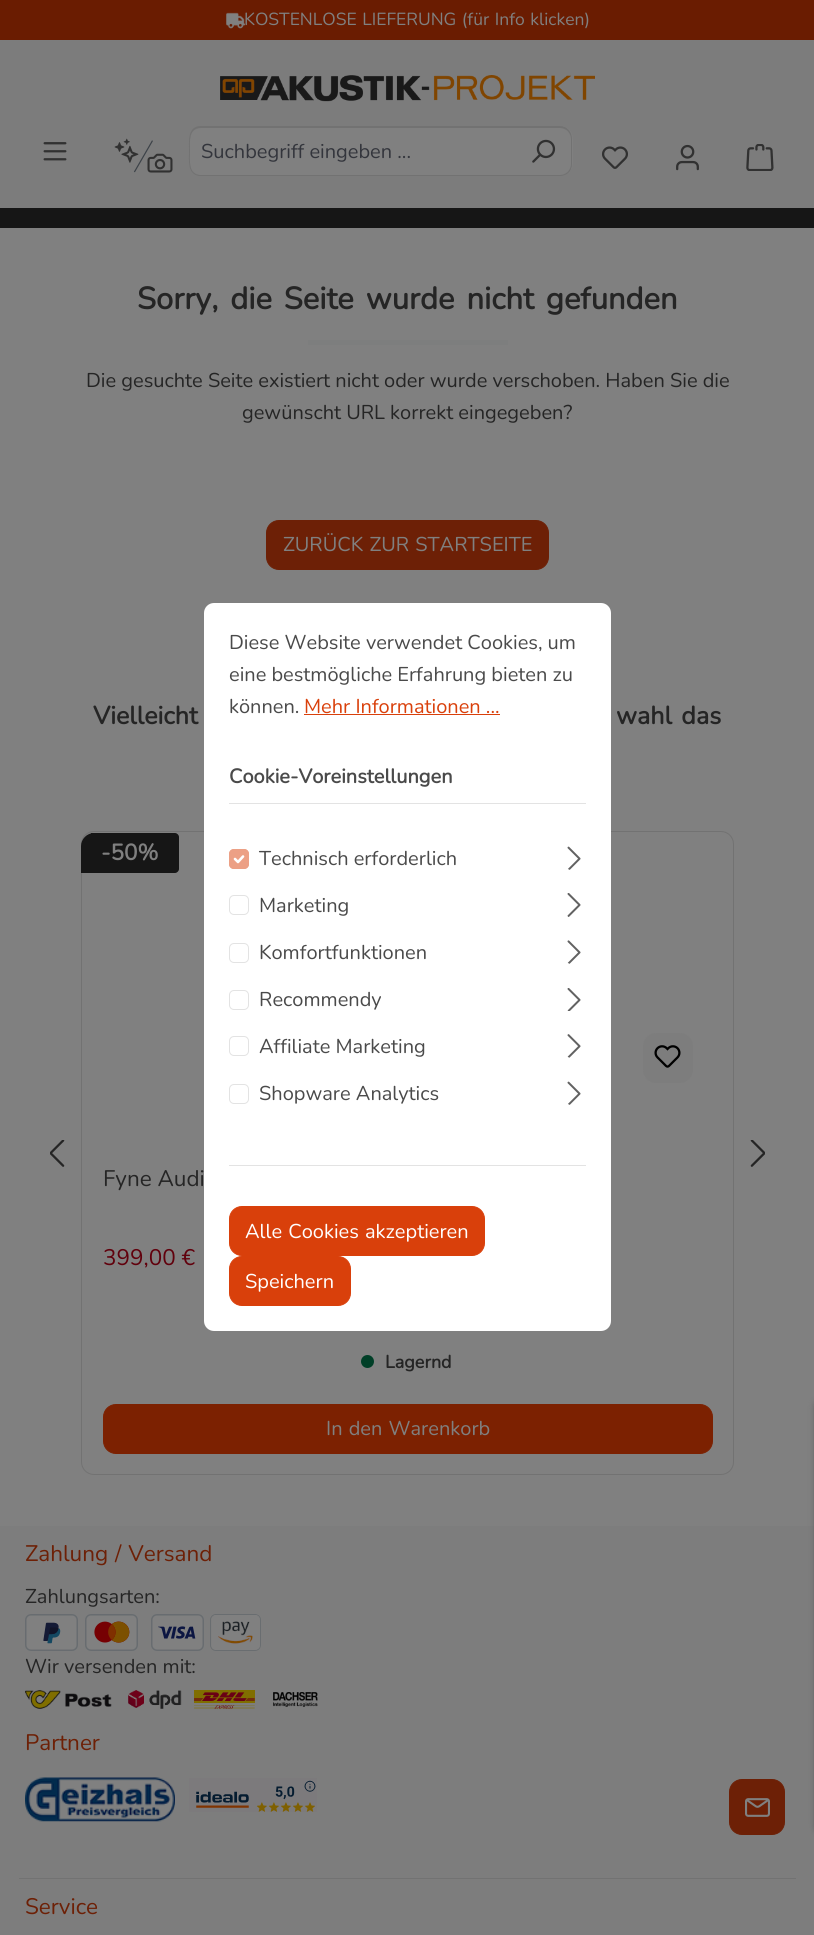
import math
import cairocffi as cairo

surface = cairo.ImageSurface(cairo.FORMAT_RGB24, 814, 1935)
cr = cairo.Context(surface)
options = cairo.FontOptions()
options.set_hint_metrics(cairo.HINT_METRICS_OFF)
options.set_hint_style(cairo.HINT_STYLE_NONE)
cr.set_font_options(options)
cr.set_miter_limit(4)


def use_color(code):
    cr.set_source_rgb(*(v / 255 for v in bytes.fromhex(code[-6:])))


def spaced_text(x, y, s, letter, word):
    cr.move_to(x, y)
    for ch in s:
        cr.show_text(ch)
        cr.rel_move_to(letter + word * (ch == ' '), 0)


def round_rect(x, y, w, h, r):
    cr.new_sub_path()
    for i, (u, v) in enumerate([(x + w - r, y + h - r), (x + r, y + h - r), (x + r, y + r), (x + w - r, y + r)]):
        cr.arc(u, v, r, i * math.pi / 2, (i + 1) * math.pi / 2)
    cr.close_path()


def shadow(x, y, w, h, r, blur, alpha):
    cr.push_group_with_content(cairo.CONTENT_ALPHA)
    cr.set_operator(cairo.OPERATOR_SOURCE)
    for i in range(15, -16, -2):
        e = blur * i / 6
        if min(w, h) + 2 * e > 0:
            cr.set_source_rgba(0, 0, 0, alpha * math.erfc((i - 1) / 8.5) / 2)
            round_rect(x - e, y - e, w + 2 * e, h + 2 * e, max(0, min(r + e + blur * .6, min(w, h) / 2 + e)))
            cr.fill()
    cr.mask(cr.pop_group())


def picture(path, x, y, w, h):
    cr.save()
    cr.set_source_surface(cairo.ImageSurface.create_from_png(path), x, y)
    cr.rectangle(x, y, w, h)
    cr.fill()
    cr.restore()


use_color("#808080")
cr.paint()
use_color("#6a1c01")
cr.rectangle(0, 0, 814, 40)
cr.fill()
picture("img1.png", 226, 12, 19, 17)
cr.select_font_face("Nunito")
cr.set_font_size(17.5)
use_color("#808080")
spaced_text(244, 25, "KOSTENLOSE LIEFERUNG (für Info klicken)", 0, 1)
use_color("#7c7c7c")
cr.rectangle(0, 40, 814, 168)
cr.fill()
picture("img2.png", 220, 75, 375, 27)
picture("img3.png", 43, 142, 24, 19)
picture("img4.png", 114, 138, 59, 35)
use_color("#808080")
cr.new_path()
cr.move_to(201, 128)
cr.line_to(515, 128)
cr.line_to(515, 175)
cr.line_to(201, 175)
cr.curve_to(195, 175, 190, 170, 190, 164)
cr.line_to(190, 139)
cr.curve_to(190, 133, 195, 128, 201, 128)
cr.close_path()
cr.fill()
use_color("#727272")
cr.set_fill_rule(cairo.FILL_RULE_EVEN_ODD)
cr.new_path()
cr.move_to(201, 126)
cr.line_to(515, 126)
cr.line_to(515, 176)
cr.line_to(199, 176)
cr.curve_to(187, 174, 189, 160, 189, 151)
cr.curve_to(189, 142, 187, 126, 201, 126)
cr.close_path()
cr.move_to(201, 128)
cr.line_to(515, 128)
cr.line_to(515, 175)
cr.line_to(199, 175)
cr.curve_to(188, 173, 190, 160, 190, 151)
cr.curve_to(190, 142, 188, 128, 201, 128)
cr.close_path()
cr.fill()
cr.set_font_size(20)
use_color("#33353c")
cr.move_to(201, 158)
cr.show_text("Suchbegriff eingeben ...")
use_color("#808080")
cr.new_path()
cr.move_to(514, 126)
cr.line_to(560, 126)
cr.curve_to(567, 126, 573, 132, 573, 139)
cr.line_to(573, 163)
cr.curve_to(573, 170, 567, 176, 560, 176)
cr.line_to(514, 176)
cr.close_path()
cr.fill()
use_color("#727272")
cr.new_path()
cr.move_to(514, 126)
cr.line_to(560, 126)
cr.curve_to(567, 126, 572, 132, 572, 139)
cr.line_to(572, 164)
cr.curve_to(572, 171, 567, 176, 560, 176)
cr.line_to(514, 176)
cr.close_path()
cr.move_to(514, 128)
cr.line_to(560, 128)
cr.curve_to(566, 128, 571, 133, 571, 139)
cr.line_to(571, 164)
cr.curve_to(571, 170, 566, 175, 560, 175)
cr.line_to(514, 175)
cr.close_path()
cr.fill()
picture("img5.png", 532, 139, 24, 24)
picture("img6.png", 602, 146, 26, 23)
picture("img7.png", 676, 144, 23, 27)
picture("img8.png", 746, 144, 28, 27)
use_color("#161616")
cr.rectangle(0, 208, 814, 20)
cr.fill()
cr.select_font_face("Nunito", cairo.FONT_SLANT_NORMAL, cairo.FONT_WEIGHT_BOLD)
cr.set_font_size(30.9)
use_color("#252525")
spaced_text(137, 309, "Sorry, die Seite wurde nicht gefunden", 0, 4)
use_color("#7d7e7e")
cr.rectangle(308, 340, 200, 5)
cr.fill()
cr.select_font_face("Nunito")
cr.set_font_size(20)
use_color("#252525")
cr.move_to(86, 387)
cr.show_text("Die gesuchte Seite existiert nicht oder wurde verschoben. Haben Sie die")
cr.move_to(242, 419)
cr.show_text("gewünscht URL korrekt eingegeben?")
use_color("#6d2006")
round_rect(266.5, 520.5, 282, 49, 12.5)
cr.fill_preserve()
cr.set_line_width(1)
cr.stroke()
use_color("#808080")
spaced_text(283, 551, "ZURÜCK ZUR STARTSEITE", 0, 1)
cr.select_font_face("Nunito", cairo.FONT_SLANT_NORMAL, cairo.FONT_WEIGHT_BOLD)
cr.set_font_size(25)
use_color("#252525")
spaced_text(93, 724, "Vielleicht", 0, 3)
spaced_text(616, 724, "wahl das", 0, 3)
round_rect(81.5, 831.5, 652, 643, 12.5)
use_color("#727272")
cr.stroke()
use_color("#161616")
cr.new_path()
cr.move_to(94, 833)
cr.line_to(175, 833)
cr.curve_to(177, 833, 179, 835, 179, 837)
cr.line_to(179, 869)
cr.curve_to(179, 871, 177, 873, 175, 873)
cr.line_to(81, 873)
cr.line_to(81, 846)
cr.curve_to(81, 839, 87, 833, 94, 833)
cr.close_path()
cr.fill()
cr.new_path()
cr.move_to(91, 833)
cr.line_to(165, 833)
cr.curve_to(167, 833, 169, 835, 169, 837)
cr.line_to(169, 869)
cr.curve_to(169, 871, 167, 873, 165, 873)
cr.line_to(91, 873)
cr.close_path()
cr.fill()
cr.set_font_size(22.5)
use_color("#808080")
cr.move_to(101, 860)
cr.show_text("-50%")
use_color("#7d7d7d")
round_rect(643, 1033, 50, 50, 13)
cr.fill()
picture("img9.png", 654, 1045, 27, 23)
cr.select_font_face("Nunito")
use_color("#252525")
cr.move_to(103, 1186)
cr.show_text("Fyne Audi")
use_color("#61000c")
cr.move_to(103, 1265)
cr.show_text("399,00 €")
use_color("#003f27")
cr.new_path()
cr.arc(367.5, 1361.5, 6.5, 0, 2 * math.pi)
cr.fill()
cr.select_font_face("Nunito", cairo.FONT_SLANT_NORMAL, cairo.FONT_WEIGHT_BOLD)
cr.set_font_size(18)
use_color("#252525")
cr.move_to(385, 1368)
cr.show_text("Lagernd")
use_color("#7c2101")
round_rect(103.5, 1404.5, 609, 49, 12.5)
cr.fill_preserve()
cr.stroke()
cr.select_font_face("Nunito")
cr.set_font_size(20)
use_color("#808080")
spaced_text(326, 1435, "In den Warenkorb", 0, 1)
picture("img10.png", 50, 1140, 15, 27)
picture("img11.png", 750, 1140, 15, 27)
use_color("#ffffff")
round_rect(204, 603, 407, 728, 10)
cr.fill()
use_color("#e3e3e3")
cr.rectangle(229, 803, 357, 1)
cr.fill()
use_color("#4a4a4a")
cr.move_to(229, 649)
cr.show_text("Diese Website verwendet Cookies, um")
cr.move_to(229, 681)
cr.show_text("eine bestmögliche Erfahrung bieten zu")
cr.move_to(229, 713)
cr.show_text("können.")
use_color("#d9400b")
cr.move_to(304, 713)
cr.show_text("Mehr Informationen ...")
cr.rectangle(304, 714, 196, 1)
cr.fill()
cr.select_font_face("Nunito", cairo.FONT_SLANT_NORMAL, cairo.FONT_WEIGHT_BOLD)
use_color("#4a4a4a")
cr.move_to(229, 783)
cr.show_text("Cookie-Voreinstellungen")
use_color("#e3e3e3")
cr.rectangle(229, 1165, 357, 1)
cr.fill()
use_color("#eca085")
round_rect(229, 849, 20, 20, 5)
cr.fill()
cr.new_path()
cr.move_to(235, 859)
cr.line_to(238, 862)
cr.line_to(243, 856.5)
use_color("#ffffff")
cr.set_line_width(2.6)
cr.set_line_cap(cairo.LINE_CAP_ROUND)
cr.set_line_join(cairo.LINE_JOIN_ROUND)
cr.stroke()
round_rect(229.5, 849.5, 19, 19, 4.5)
use_color("#eca085")
cr.set_line_width(1)
cr.set_line_cap(cairo.LINE_CAP_BUTT)
cr.set_line_join(cairo.LINE_JOIN_MITER)
cr.stroke()
cr.select_font_face("Nunito")
use_color("#4a4a4a")
cr.move_to(259, 865)
cr.show_text("Technisch erforderlich")
picture("img12.png", 567, 846, 14, 24)
round_rect(229.5, 895.5, 19, 19, 4.5)
use_color("#e3e3e3")
cr.stroke()
use_color("#4a4a4a")
cr.move_to(259, 912)
cr.show_text("Marketing")
picture("img13.png", 567, 893, 14, 24)
round_rect(229.5, 943.5, 19, 19, 4.5)
use_color("#e3e3e3")
cr.stroke()
use_color("#4a4a4a")
cr.move_to(259, 959)
cr.show_text("Komfortfunktionen")
picture("img14.png", 567, 940, 14, 24)
round_rect(229.5, 990.5, 19, 19, 4.5)
use_color("#e3e3e3")
cr.stroke()
use_color("#4a4a4a")
cr.move_to(259, 1006)
cr.show_text("Recommendy")
picture("img15.png", 567, 988, 14, 23)
round_rect(229.5, 1036.5, 19, 19, 4.5)
use_color("#e3e3e3")
cr.stroke()
use_color("#4a4a4a")
cr.move_to(259, 1053)
cr.show_text("Affiliate Marketing")
picture("img16.png", 567, 1034, 14, 24)
round_rect(229.5, 1084.5, 19, 19, 4.5)
use_color("#e3e3e3")
cr.stroke()
use_color("#4a4a4a")
cr.move_to(259, 1100)
cr.show_text("Shopware Analytics")
picture("img12.png", 567, 1081, 14, 24)
use_color("#d9400b")
round_rect(229.5, 1206.5, 255, 49, 12.5)
cr.fill_preserve()
cr.stroke()
use_color("#ffffff")
spaced_text(245, 1238, "Alle Cookies akzeptieren", 0, 1)
use_color("#d9400b")
round_rect(229.5, 1256.5, 121, 49, 12.5)
cr.fill_preserve()
cr.stroke()
use_color("#ffffff")
cr.move_to(245, 1288)
cr.show_text("Speichern")
use_color("#7d7d7d")
cr.rectangle(0, 1526, 814, 409)
cr.fill()
use_color("#727272")
cr.rectangle(19, 1878, 777, 1)
cr.fill()
cr.set_font_size(22.5)
use_color("#6d2006")
spaced_text(25, 1561, "Zahlung / Versand", 0, 1)
cr.set_font_size(20)
use_color("#252525")
cr.move_to(25, 1603)
cr.show_text("Zahlungsarten:")
picture("img17.png", 25, 1614, 53, 37)
picture("img18.png", 85, 1614, 119, 37)
round_rect(210.5, 1614.5, 50, 36, 5.5)
use_color("#696d70")
cr.stroke()
picture("img19.png", 211, 1615, 49, 35)
use_color("#252525")
cr.move_to(25, 1673)
cr.show_text("Wir versenden mit:")
picture("img20.png", 25, 1690, 87, 19)
picture("img21.png", 128, 1690, 54, 19)
picture("img22.png", 194, 1690, 61, 19)
picture("img23.png", 273, 1692, 45, 15)
cr.set_font_size(22.5)
use_color("#6d2006")
cr.move_to(25, 1750)
cr.show_text("Partner")
picture("img24.png", 25, 1777, 150, 45)
picture("img25.png", 189, 1778, 128, 34)
cr.move_to(25, 1914)
cr.show_text("Service")
round_rect(729.5, 1779.5, 55, 55, 12.5)
cr.fill_preserve()
cr.stroke()
picture("img26.png", 745, 1798, 25, 19)
use_color("#5b5b5b")
shadow(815, 1398, 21, 437, 13, 3, 1)
surface.write_to_png("result.png")
